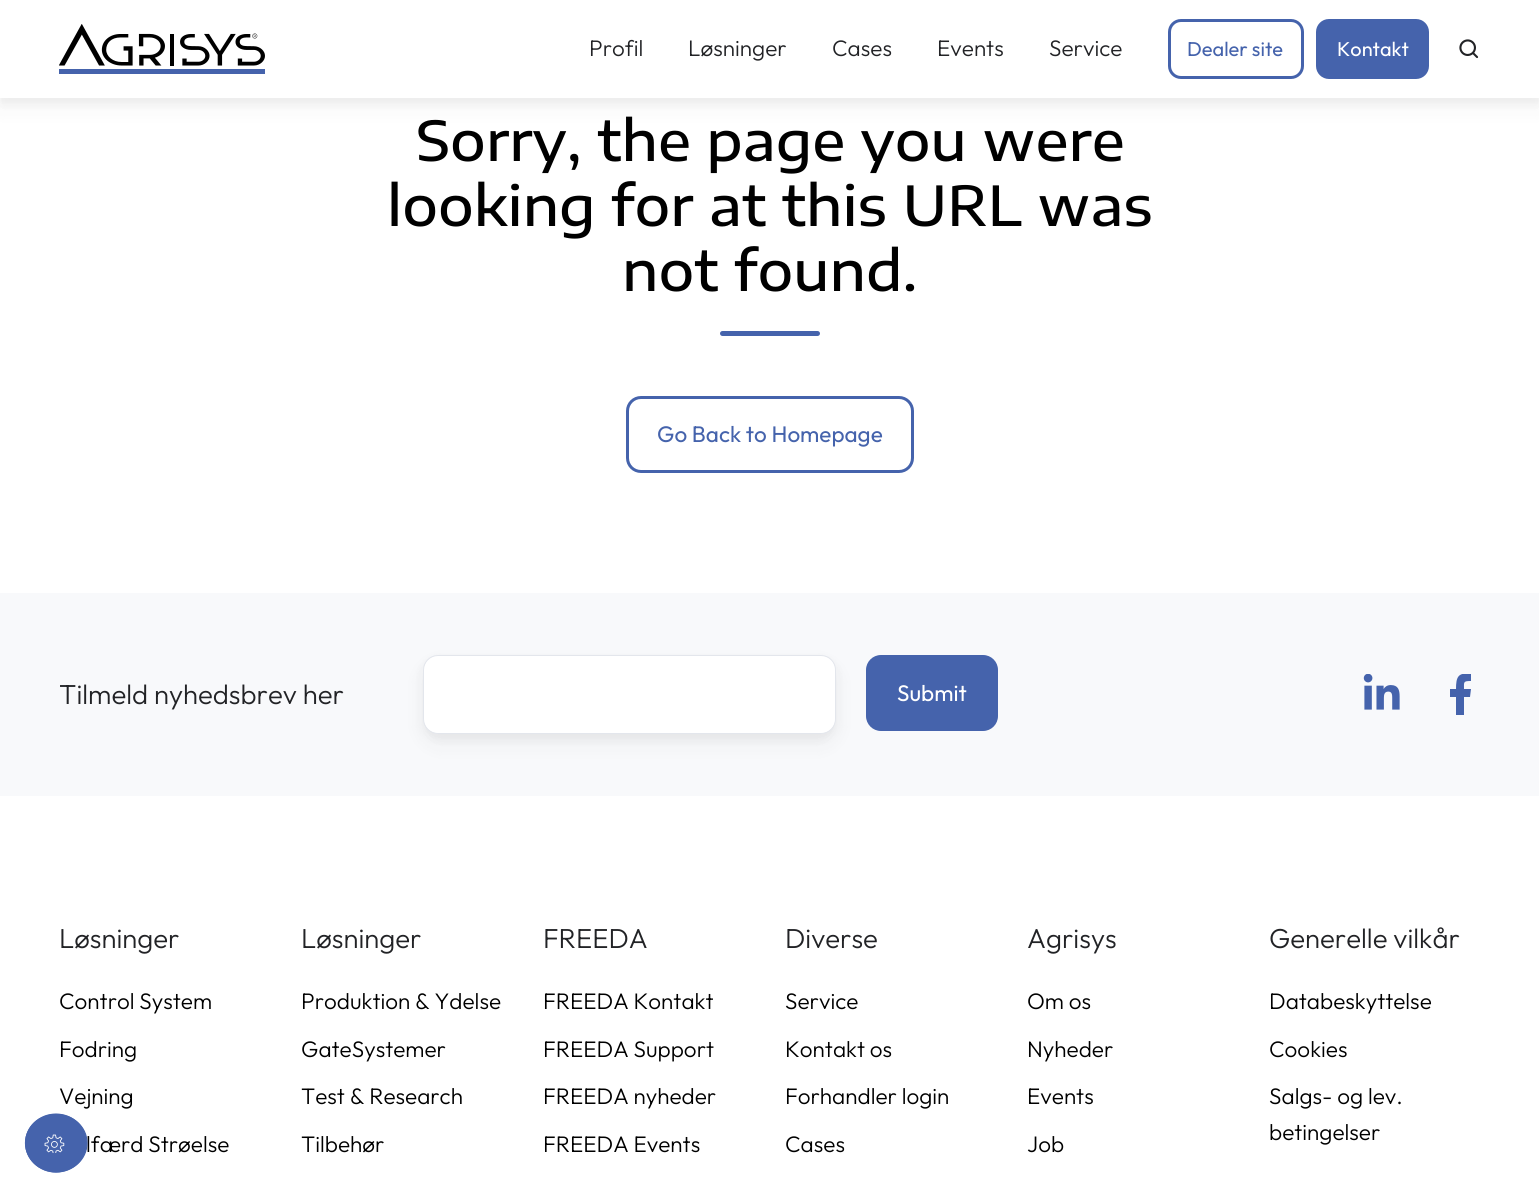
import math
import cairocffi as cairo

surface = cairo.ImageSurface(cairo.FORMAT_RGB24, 1539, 1197)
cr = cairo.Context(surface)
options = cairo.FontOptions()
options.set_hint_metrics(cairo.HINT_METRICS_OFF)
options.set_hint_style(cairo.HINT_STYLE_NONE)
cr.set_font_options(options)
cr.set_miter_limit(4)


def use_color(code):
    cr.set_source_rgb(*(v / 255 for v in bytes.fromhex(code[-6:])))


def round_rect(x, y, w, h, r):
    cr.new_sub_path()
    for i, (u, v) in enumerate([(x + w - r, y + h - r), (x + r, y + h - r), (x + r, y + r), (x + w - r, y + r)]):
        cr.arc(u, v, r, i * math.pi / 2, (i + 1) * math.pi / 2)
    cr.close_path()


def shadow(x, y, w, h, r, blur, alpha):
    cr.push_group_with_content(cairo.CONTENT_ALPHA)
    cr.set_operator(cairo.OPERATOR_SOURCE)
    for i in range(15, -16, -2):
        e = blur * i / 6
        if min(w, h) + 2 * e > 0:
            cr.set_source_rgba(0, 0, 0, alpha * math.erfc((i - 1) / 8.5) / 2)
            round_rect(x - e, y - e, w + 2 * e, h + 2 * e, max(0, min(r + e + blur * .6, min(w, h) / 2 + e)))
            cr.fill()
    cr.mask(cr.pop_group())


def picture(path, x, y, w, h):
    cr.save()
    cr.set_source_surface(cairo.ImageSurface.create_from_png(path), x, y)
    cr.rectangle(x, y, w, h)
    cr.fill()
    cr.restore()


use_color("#ffffff")
cr.paint()
use_color("#4563ac")
cr.new_path()
cr.move_to(56, 1113.5)
cr.curve_to(73, 1113.5, 87, 1126.5, 87, 1143)
cr.curve_to(87, 1159.5, 73, 1172.5, 56, 1172.5)
cr.curve_to(39, 1172.5, 25, 1159.5, 25, 1143)
cr.curve_to(25, 1126.5, 39, 1113.5, 56, 1113.5)
cr.close_path()
cr.fill()
cr.select_font_face("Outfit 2 Thin")
cr.set_font_size(22.5)
use_color("#000000")
cr.move_to(86, 1152)
cr.show_text("lfærd Strøelse")
cr.new_path()
cr.move_to(56, 1114.5)
cr.curve_to(73, 1114.5, 87, 1127, 87, 1143)
cr.curve_to(87, 1159, 73, 1172, 56, 1172)
cr.curve_to(39.5, 1172, 25.5, 1159, 25.5, 1143)
cr.curve_to(25.5, 1127, 39.5, 1114.5, 56, 1114.5)
cr.close_path()
use_color("#4563ac")
cr.set_line_width(1.2)
cr.stroke()
picture("img1.png", 44, 1134, 21, 19)
use_color("#222326")
shadow(0, 5, 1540, 98, 0, 5, 0.05)
shadow(0, 10, 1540, 98, 0, 10, 0.05)
use_color("#ffffff")
cr.rectangle(0, 0, 1539, 98)
cr.fill()
picture("img2.png", 59, 24, 206, 50)
use_color("#222326")
cr.move_to(589, 56)
cr.show_text("Profil")
cr.move_to(688, 56)
cr.show_text("Løsninger")
cr.move_to(832, 56)
cr.show_text("Cases")
cr.move_to(937, 56)
cr.show_text("Events")
cr.move_to(1049, 56)
cr.show_text("Service")
round_rect(1169.5, 20.5, 133, 57, 11.5)
use_color("#4563ac")
cr.set_line_width(3)
cr.stroke()
cr.select_font_face("Outfit Thin")
cr.set_font_size(20)
cr.move_to(1187, 56)
cr.show_text("Dealer site")
round_rect(1316, 19, 113, 60, 13)
cr.fill()
use_color("#ffffff")
cr.move_to(1337, 56)
cr.show_text("Kontakt")
picture("img3.png", 1459, 39, 20, 20)
cr.select_font_face("Encode Sans Expanded Medium")
cr.set_font_size(54.9)
use_color("#000000")
cr.move_to(416, 161)
cr.show_text("Sorry, the page you were")
cr.move_to(387, 226)
cr.show_text("looking for at this URL was")
cr.move_to(622, 291)
cr.show_text("not found.")
use_color("#4563ac")
round_rect(720, 331, 100, 5, 2.5)
cr.fill()
round_rect(627.5, 397.5, 285, 74, 13.5)
cr.stroke()
cr.select_font_face("Outfit Thin")
cr.set_font_size(22.5)
cr.move_to(657, 442)
cr.show_text("Go Back to Homepage")
use_color("#f8f9fb")
cr.rectangle(0, 593, 1539, 203)
cr.fill()
cr.select_font_face("Outfit 2 Thin")
cr.set_font_size(27.5)
use_color("#222326")
cr.move_to(59, 704)
cr.show_text("Tilmeld nyhedsbrev her")
use_color("#222326")
shadow(423, 660, 413, 79, 15, 5, 0.05)
shadow(423, 665, 413, 79, 15, 10, 0.05)
use_color("#ffffff")
round_rect(423.5, 655.5, 412, 78, 14.5)
cr.fill_preserve()
use_color("#e3e6ec")
cr.set_line_width(1)
cr.stroke()
use_color("#4563ac")
round_rect(866, 655, 132, 76, 15)
cr.fill()
cr.select_font_face("Outfit Thin")
cr.set_font_size(22.5)
use_color("#ffffff")
cr.move_to(897, 701)
cr.show_text("Submit")
picture("img4.png", 1363, 674, 37, 36)
cr.save()
cr.rectangle(1440, 674, 41, 41)
cr.clip()
use_color("#4563ac")
cr.new_path()
cr.move_to(1470, 697)
cr.line_to(1471, 689)
cr.line_to(1464, 689)
cr.curve_to(1464, 682, 1463, 681, 1471, 681)
cr.line_to(1471, 674)
cr.curve_to(1458, 672, 1456, 677, 1456, 689)
cr.line_to(1450, 689)
cr.line_to(1450, 697)
cr.line_to(1456, 697)
cr.line_to(1456, 715)
cr.line_to(1464, 715)
cr.line_to(1464, 697)
cr.close_path()
cr.fill()
cr.restore()
cr.select_font_face("Outfit 2 Thin")
cr.set_font_size(27.5)
use_color("#222326")
cr.move_to(59, 948)
cr.show_text("Løsninger")
cr.set_font_size(22.5)
use_color("#000000")
cr.move_to(59, 1009)
cr.show_text("Control System")
cr.move_to(59, 1057)
cr.show_text("Fodring")
cr.move_to(59, 1104)
cr.show_text("Vejning")
cr.set_font_size(27.5)
use_color("#222326")
cr.move_to(301, 948)
cr.show_text("Løsninger")
cr.set_font_size(22.5)
use_color("#000000")
cr.move_to(301, 1009)
cr.show_text("Produktion & Ydelse")
cr.move_to(301, 1057)
cr.show_text("GateSystemer")
cr.move_to(301, 1104)
cr.show_text("Test & Research")
cr.move_to(301, 1152)
cr.show_text("Tilbehør")
cr.set_font_size(27.5)
use_color("#222326")
cr.move_to(543, 948)
cr.show_text("FREEDA")
cr.set_font_size(22.5)
use_color("#000000")
cr.move_to(543, 1009)
cr.show_text("FREEDA Kontakt")
cr.move_to(543, 1057)
cr.show_text("FREEDA Support")
cr.move_to(543, 1104)
cr.show_text("FREEDA nyheder")
cr.move_to(543, 1152)
cr.show_text("FREEDA Events")
cr.set_font_size(27.5)
use_color("#222326")
cr.move_to(785, 948)
cr.show_text("Diverse")
cr.set_font_size(22.5)
use_color("#000000")
cr.move_to(785, 1009)
cr.show_text("Service")
cr.move_to(785, 1057)
cr.show_text("Kontakt os")
cr.move_to(785, 1104)
cr.show_text("Forhandler login")
cr.move_to(785, 1152)
cr.show_text("Cases")
cr.set_font_size(27.5)
use_color("#222326")
cr.move_to(1027, 948)
cr.show_text("Agrisys")
cr.set_font_size(22.5)
use_color("#000000")
cr.move_to(1027, 1009)
cr.show_text("Om os")
cr.move_to(1027, 1057)
cr.show_text("Nyheder")
cr.move_to(1027, 1104)
cr.show_text("Events")
cr.move_to(1027, 1152)
cr.show_text("Job")
cr.set_font_size(27.5)
use_color("#222326")
cr.move_to(1269, 948)
cr.show_text("Generelle vilkår")
cr.set_font_size(22.5)
use_color("#000000")
cr.move_to(1269, 1009)
cr.show_text("Databeskyttelse")
cr.move_to(1269, 1057)
cr.show_text("Cookies")
cr.move_to(1269, 1104)
cr.show_text("Salgs- og lev.")
cr.move_to(1269, 1140)
cr.show_text("betingelser")
surface.write_to_png("result.png")
